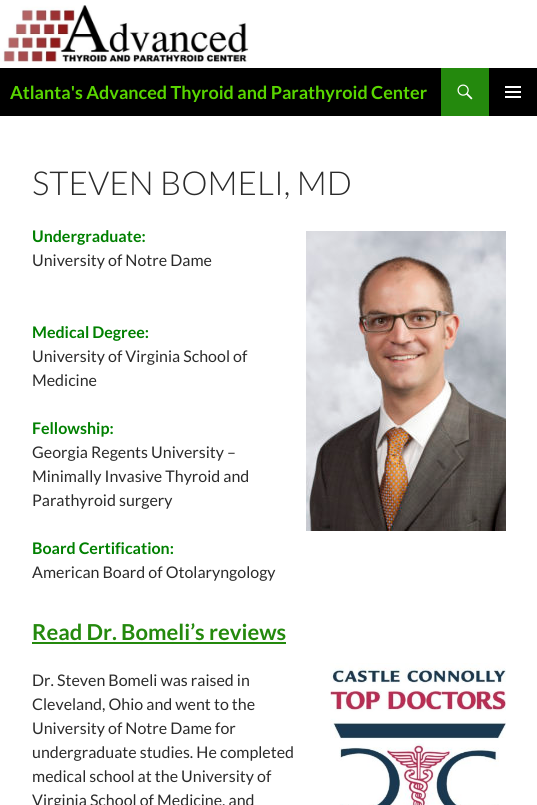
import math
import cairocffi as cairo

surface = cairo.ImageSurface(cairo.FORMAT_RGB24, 537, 805)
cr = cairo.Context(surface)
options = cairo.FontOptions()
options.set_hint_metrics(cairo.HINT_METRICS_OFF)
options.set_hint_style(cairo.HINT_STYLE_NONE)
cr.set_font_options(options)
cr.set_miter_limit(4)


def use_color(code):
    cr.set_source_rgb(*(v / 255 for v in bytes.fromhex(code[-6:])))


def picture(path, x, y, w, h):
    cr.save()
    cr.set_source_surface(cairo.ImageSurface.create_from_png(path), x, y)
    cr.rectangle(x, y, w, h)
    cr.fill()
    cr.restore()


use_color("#ffffff")
cr.paint()
picture("img1.png", 0, 5, 249, 57)
use_color("#000000")
cr.rectangle(0, 68, 537, 48)
cr.fill()
cr.select_font_face("Lato", cairo.FONT_SLANT_NORMAL, cairo.FONT_WEIGHT_BOLD)
cr.set_font_size(18)
use_color("#59d600")
cr.move_to(10, 99)
cr.show_text("Atlanta's Advanced Thyroid and Parathyroid Center")
use_color("#24890d")
cr.rectangle(441, 68, 48, 48)
cr.fill()
picture("img2.png", 457, 84, 16, 16)
picture("img3.png", 505, 86, 16, 12)
cr.select_font_face("Lato Light")
cr.set_font_size(33)
use_color("#2b2b2b")
cr.move_to(32, 195)
cr.show_text("STEVEN BOMELI, MD")
cr.select_font_face("Lato", cairo.FONT_SLANT_NORMAL, cairo.FONT_WEIGHT_BOLD)
cr.set_font_size(16)
use_color("#008000")
cr.move_to(32, 242)
cr.show_text("Undergraduate:")
cr.select_font_face("Lato")
use_color("#2b2b2b")
cr.move_to(32, 266)
cr.show_text("University of Notre Dame")
picture("img4.png", 306, 231, 200, 300)
cr.select_font_face("Lato", cairo.FONT_SLANT_NORMAL, cairo.FONT_WEIGHT_BOLD)
use_color("#008000")
cr.move_to(32, 338)
cr.show_text("Medical Degree:")
cr.select_font_face("Lato")
use_color("#2b2b2b")
cr.move_to(32, 362)
cr.show_text("University of Virginia School of")
cr.move_to(32, 386)
cr.show_text("Medicine")
cr.select_font_face("Lato", cairo.FONT_SLANT_NORMAL, cairo.FONT_WEIGHT_BOLD)
use_color("#008000")
cr.move_to(32, 434)
cr.show_text("Fellowship:")
cr.select_font_face("Lato")
use_color("#2b2b2b")
cr.move_to(32, 458)
cr.show_text("Georgia Regents University –")
cr.move_to(32, 482)
cr.show_text("Minimally Invasive Thyroid and")
cr.move_to(32, 506)
cr.show_text("Parathyroid surgery")
cr.select_font_face("Lato", cairo.FONT_SLANT_NORMAL, cairo.FONT_WEIGHT_BOLD)
use_color("#008000")
cr.move_to(32, 554)
cr.show_text("Board Certification:")
cr.select_font_face("Lato")
use_color("#2b2b2b")
cr.move_to(32, 578)
cr.show_text("American Board of Otolaryngology")
cr.select_font_face("Lato", cairo.FONT_SLANT_NORMAL, cairo.FONT_WEIGHT_BOLD)
cr.set_font_size(22)
use_color("#24890d")
cr.move_to(32, 640)
cr.show_text("Read Dr. Bomeli’s reviews")
cr.rectangle(32, 642, 254, 2)
cr.fill()
cr.select_font_face("Lato")
cr.set_font_size(16)
use_color("#2b2b2b")
cr.move_to(32, 686)
cr.show_text("Dr. Steven Bomeli was raised in")
cr.move_to(32, 710)
cr.show_text("Cleveland, Ohio and went to the")
cr.move_to(32, 734)
cr.show_text("University of Notre Dame for")
cr.move_to(32, 758)
cr.show_text("undergraduate studies. He completed")
cr.move_to(32, 782)
cr.show_text("medical school at the University of")
cr.move_to(32, 806)
cr.show_text("Virginia School of Medicine, and")
picture("img5.png", 330, 663, 176, 142)
surface.write_to_png("result.png")
